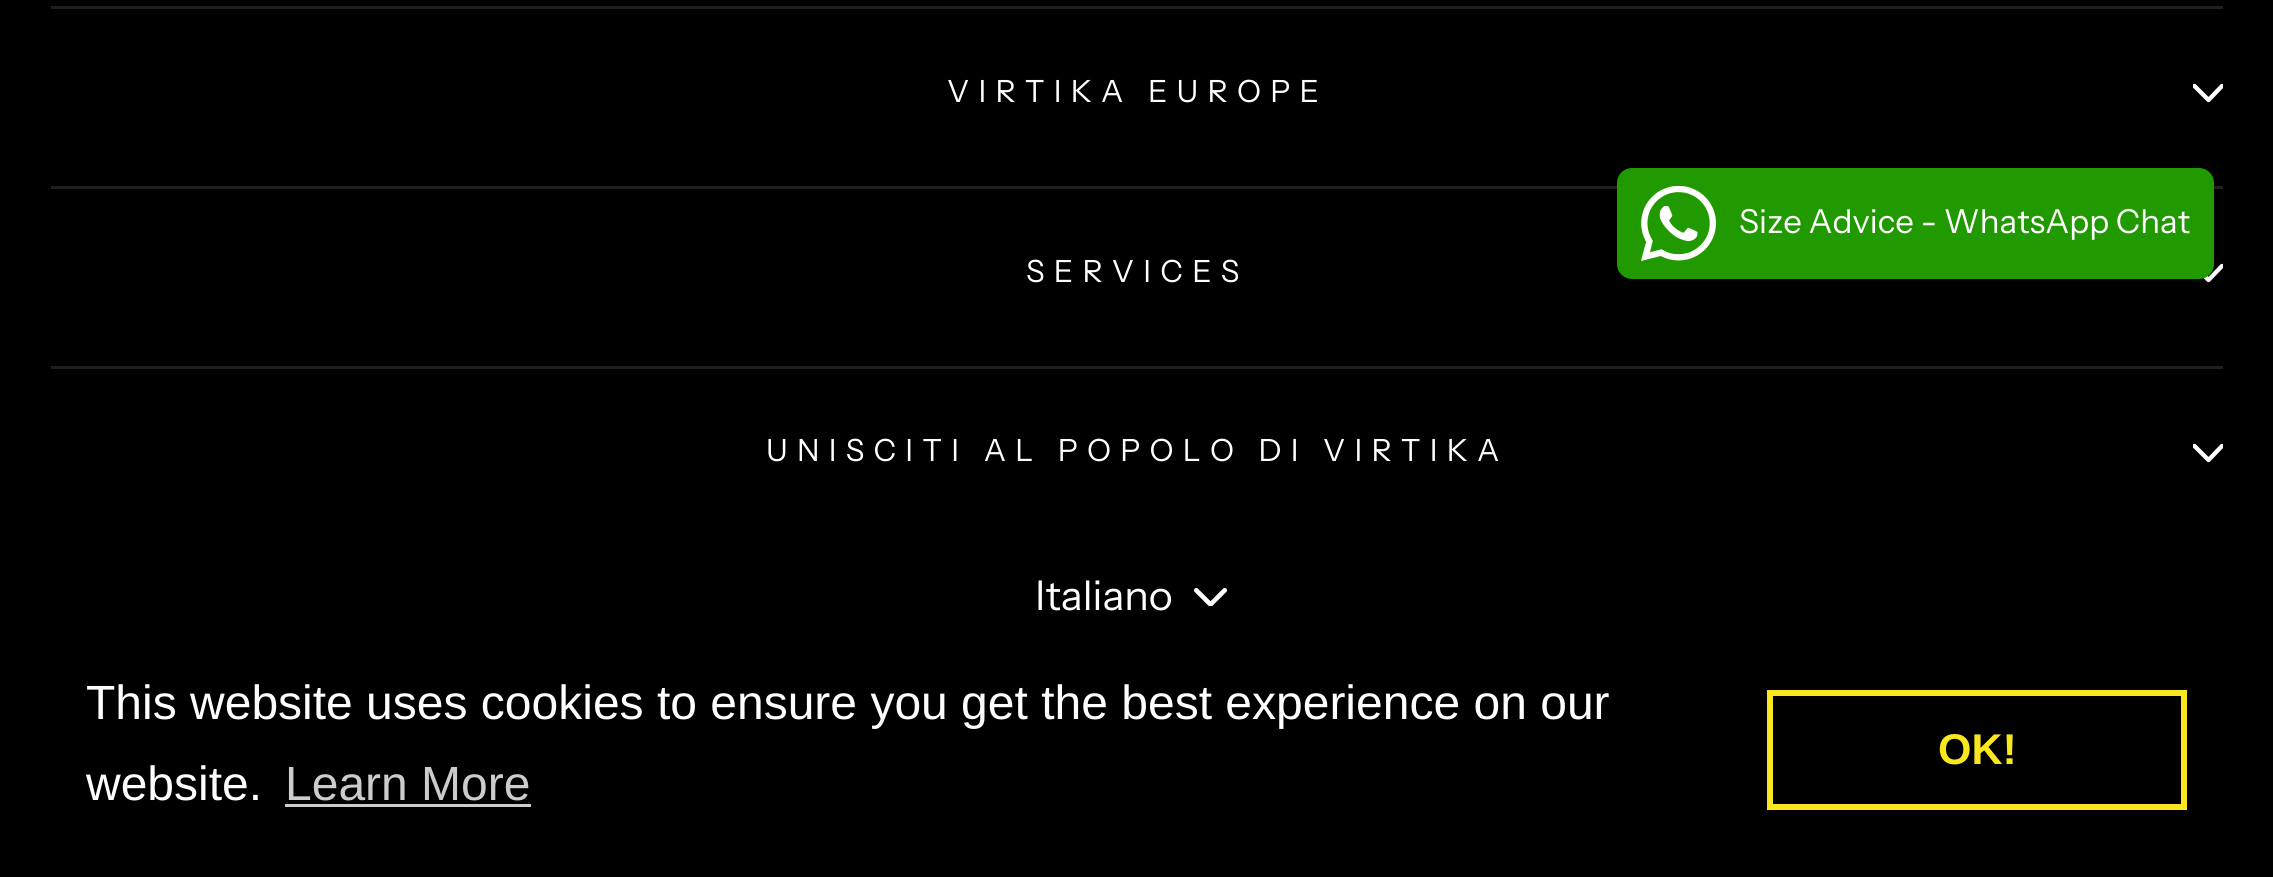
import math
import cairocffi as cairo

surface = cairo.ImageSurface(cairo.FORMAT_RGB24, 2273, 877)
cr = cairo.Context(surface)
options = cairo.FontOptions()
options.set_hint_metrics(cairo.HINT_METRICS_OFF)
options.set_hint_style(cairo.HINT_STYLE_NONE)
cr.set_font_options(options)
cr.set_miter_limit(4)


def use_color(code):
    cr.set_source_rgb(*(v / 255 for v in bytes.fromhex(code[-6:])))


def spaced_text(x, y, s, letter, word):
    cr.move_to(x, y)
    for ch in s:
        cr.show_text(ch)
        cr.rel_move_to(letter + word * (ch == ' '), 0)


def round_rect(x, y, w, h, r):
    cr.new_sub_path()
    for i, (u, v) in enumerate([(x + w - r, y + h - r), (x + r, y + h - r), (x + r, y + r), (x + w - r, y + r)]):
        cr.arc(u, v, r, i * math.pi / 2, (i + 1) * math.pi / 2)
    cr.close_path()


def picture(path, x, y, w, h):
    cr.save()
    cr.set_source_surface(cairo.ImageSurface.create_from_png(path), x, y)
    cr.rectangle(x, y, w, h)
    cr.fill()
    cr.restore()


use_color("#000000")
cr.paint()
use_color("#1f1f1f")
cr.rectangle(51, 6, 2172, 3)
cr.fill()
cr.select_font_face("Instrument Sans")
cr.set_font_size(30.6)
use_color("#ffffff")
spaced_text(947, 102, "VIRTIKA EUROPE", 9.2, 0)
cr.save()
cr.rectangle(2193, 78, 30, 30)
cr.clip()
cr.new_path()
cr.move_to(2194.5, 86)
cr.line_to(2208.5, 100)
cr.line_to(2222, 86)
cr.set_line_width(4.3)
cr.set_line_cap(cairo.LINE_CAP_ROUND)
cr.set_line_join(cairo.LINE_JOIN_ROUND)
cr.stroke()
cr.restore()
use_color("#1f1f1f")
cr.rectangle(51, 186, 2172, 3)
cr.fill()
use_color("#ffffff")
spaced_text(1026, 282, "SERVICES", 9.2, 0)
cr.save()
cr.rectangle(2193, 258, 30, 30)
cr.clip()
cr.new_path()
cr.move_to(2194.5, 266)
cr.line_to(2208.5, 280)
cr.line_to(2222, 266)
cr.set_line_width(4.3)
cr.set_line_cap(cairo.LINE_CAP_ROUND)
cr.set_line_join(cairo.LINE_JOIN_ROUND)
cr.stroke()
cr.restore()
use_color("#1f1f1f")
cr.rectangle(51, 366, 2172, 3)
cr.fill()
use_color("#ffffff")
spaced_text(766, 461, "UNISCITI AL POPOLO DI VIRTIKA", 9.2, 0)
cr.save()
cr.rectangle(2193, 438, 30, 30)
cr.clip()
cr.new_path()
cr.move_to(2194.5, 446)
cr.line_to(2208.5, 460)
cr.line_to(2222, 446)
cr.set_line_width(4.3)
cr.set_line_cap(cairo.LINE_CAP_ROUND)
cr.set_line_join(cairo.LINE_JOIN_ROUND)
cr.stroke()
cr.restore()
picture("img1.png", 1194, 588, 33, 18)
cr.set_font_size(41)
cr.move_to(1035, 610)
cr.show_text("Italiano")
use_color("#219900")
round_rect(1617, 168, 597, 111, 15)
cr.fill()
picture("img2.png", 1641, 186, 75, 75)
cr.set_font_size(33)
use_color("#ffffff")
cr.move_to(1739, 233)
cr.show_text("Size Advice - WhatsApp Chat")
cr.select_font_face("Liberation Sans")
cr.set_font_size(48)
cr.move_to(86, 719)
cr.show_text("This website uses cookies to ensure you get the best experience on our")
cr.move_to(86, 800)
cr.show_text("website.")
use_color("#cccccc")
cr.move_to(285, 800)
cr.show_text("Learn More")
cr.rectangle(285, 804, 246, 3)
cr.fill()
cr.rectangle(1770, 693, 414, 114)
use_color("#f8e71c")
cr.set_line_width(6)
cr.stroke()
cr.select_font_face("Liberation Sans", cairo.FONT_SLANT_NORMAL, cairo.FONT_WEIGHT_BOLD)
cr.set_font_size(43)
cr.move_to(1938, 764)
cr.show_text("OK!")
surface.write_to_png("result.png")
